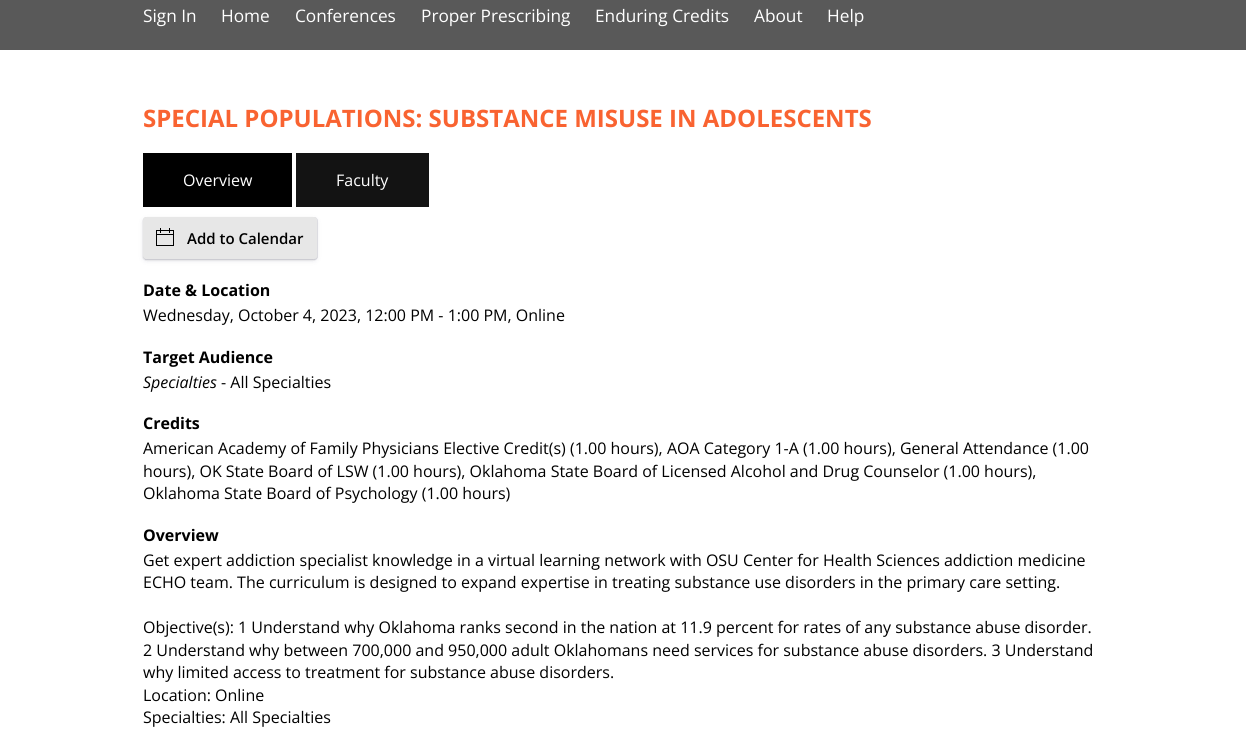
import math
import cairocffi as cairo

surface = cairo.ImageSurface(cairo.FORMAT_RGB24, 1246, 730)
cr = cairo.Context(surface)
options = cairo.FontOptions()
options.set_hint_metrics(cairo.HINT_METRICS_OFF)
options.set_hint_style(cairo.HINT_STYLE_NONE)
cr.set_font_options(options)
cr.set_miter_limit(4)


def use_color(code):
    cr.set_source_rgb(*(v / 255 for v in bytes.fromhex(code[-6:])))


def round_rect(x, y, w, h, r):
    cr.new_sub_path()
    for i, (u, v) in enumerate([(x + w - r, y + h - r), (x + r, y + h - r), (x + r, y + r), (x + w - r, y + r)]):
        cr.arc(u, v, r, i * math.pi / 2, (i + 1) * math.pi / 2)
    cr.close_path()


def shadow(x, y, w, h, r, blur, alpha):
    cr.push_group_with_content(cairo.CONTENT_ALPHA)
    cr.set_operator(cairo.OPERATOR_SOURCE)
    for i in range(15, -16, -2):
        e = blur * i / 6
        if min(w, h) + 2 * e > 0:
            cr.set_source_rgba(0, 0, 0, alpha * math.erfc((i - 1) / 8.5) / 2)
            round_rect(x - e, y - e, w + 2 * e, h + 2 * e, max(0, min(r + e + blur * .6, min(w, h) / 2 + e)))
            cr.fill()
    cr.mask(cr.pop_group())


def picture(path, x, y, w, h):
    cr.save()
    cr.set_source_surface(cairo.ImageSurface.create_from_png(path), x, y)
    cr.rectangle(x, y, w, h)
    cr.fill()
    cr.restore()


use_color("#ffffff")
cr.paint()
use_color("#595959")
cr.rectangle(0, 0, 1246, 50)
cr.fill()
cr.select_font_face("Open Sans")
cr.set_font_size(17.25)
use_color("#ffffff")
cr.move_to(143, 22)
cr.show_text("Sign In")
cr.move_to(221, 22)
cr.show_text("Home")
cr.move_to(295, 22)
cr.show_text("Conferences")
cr.move_to(421, 22)
cr.show_text("Proper Prescribing")
cr.move_to(595, 22)
cr.show_text("Enduring Credits")
cr.move_to(754, 22)
cr.show_text("About")
cr.move_to(827, 22)
cr.show_text("Help")
cr.select_font_face("Open Sans", cairo.FONT_SLANT_NORMAL, cairo.FONT_WEIGHT_BOLD)
cr.set_font_size(24)
use_color("#f96331")
cr.move_to(143, 127)
cr.show_text("SPECIAL POPULATIONS: SUBSTANCE MISUSE IN ADOLESCENTS")
use_color("#000000")
cr.rectangle(143, 153, 149, 54)
cr.fill()
cr.select_font_face("Open Sans")
cr.set_font_size(16)
use_color("#ffffff")
cr.move_to(183, 186)
cr.show_text("Overview")
use_color("#131313")
cr.rectangle(296, 153, 133, 54)
cr.fill()
use_color("#ffffff")
cr.move_to(336, 186)
cr.show_text("Faculty")
use_color("#000000")
shadow(143, 218, 174, 42, 3, 1, 0.08)
shadow(143, 218, 174, 42, 3, 1, 0.07)
use_color("#32325d")
shadow(143, 219, 174, 42, 3, 2.5, 0.1)
round_rect(143.25, 217.25, 174.5, 42.5, 3.75)
cr.set_source_rgba(0.196, 0.196, 0.365, 0.17)
cr.set_line_width(0.5)
cr.stroke()
use_color("#e7e7e7")
round_rect(143, 217, 174, 42, 3)
cr.fill()
picture("img1.png", 156, 228, 18, 18)
cr.select_font_face("Open Sans SemiBold")
cr.set_font_size(15)
use_color("#000000")
cr.move_to(187, 244)
cr.show_text("Add to Calendar")
cr.select_font_face("Open Sans", cairo.FONT_SLANT_NORMAL, cairo.FONT_WEIGHT_BOLD)
cr.set_font_size(16)
cr.move_to(143, 296)
cr.show_text("Date & Location")
cr.select_font_face("Open Sans")
cr.move_to(143, 321)
cr.show_text("Wednesday, October 4, 2023, 12:00 PM - 1:00 PM, Online")
cr.select_font_face("Open Sans", cairo.FONT_SLANT_NORMAL, cairo.FONT_WEIGHT_BOLD)
cr.move_to(143, 363)
cr.show_text("Target Audience")
cr.select_font_face("Open Sans", cairo.FONT_SLANT_ITALIC)
cr.move_to(143, 388)
cr.show_text("Specialties")
cr.select_font_face("Open Sans")
cr.move_to(221, 388)
cr.show_text("- All Specialties")
cr.select_font_face("Open Sans", cairo.FONT_SLANT_NORMAL, cairo.FONT_WEIGHT_BOLD)
cr.move_to(143, 429)
cr.show_text("Credits")
cr.select_font_face("Open Sans")
cr.move_to(143, 454)
cr.show_text("American Academy of Family Physicians Elective Credit(s) (1.00 hours), AOA Category 1-A (1.00 hours), General Attendance (1.00")
cr.move_to(143, 477)
cr.show_text("hours), OK State Board of LSW (1.00 hours), Oklahoma State Board of Licensed Alcohol and Drug Counselor (1.00 hours),")
cr.move_to(143, 499)
cr.show_text("Oklahoma State Board of Psychology (1.00 hours)")
cr.select_font_face("Open Sans", cairo.FONT_SLANT_NORMAL, cairo.FONT_WEIGHT_BOLD)
cr.move_to(143, 541)
cr.show_text("Overview")
cr.select_font_face("Open Sans")
cr.move_to(143, 566)
cr.show_text("Get expert addiction specialist knowledge in a virtual learning network with OSU Center for Health Sciences addiction medicine")
cr.move_to(143, 588)
cr.show_text("ECHO team. The curriculum is designed to expand expertise in treating substance use disorders in the primary care setting.")
cr.move_to(143, 633)
cr.show_text("Objective(s): 1 Understand why Oklahoma ranks second in the nation at 11.9 percent for rates of any substance abuse disorder.")
cr.move_to(143, 656)
cr.show_text("2 Understand why between 700,000 and 950,000 adult Oklahomans need services for substance abuse disorders. 3 Understand")
cr.move_to(143, 678)
cr.show_text("why limited access to treatment for substance abuse disorders.")
cr.move_to(143, 701)
cr.show_text("Location: Online")
cr.move_to(143, 723)
cr.show_text("Specialties: All Specialties")
surface.write_to_png("result.png")
